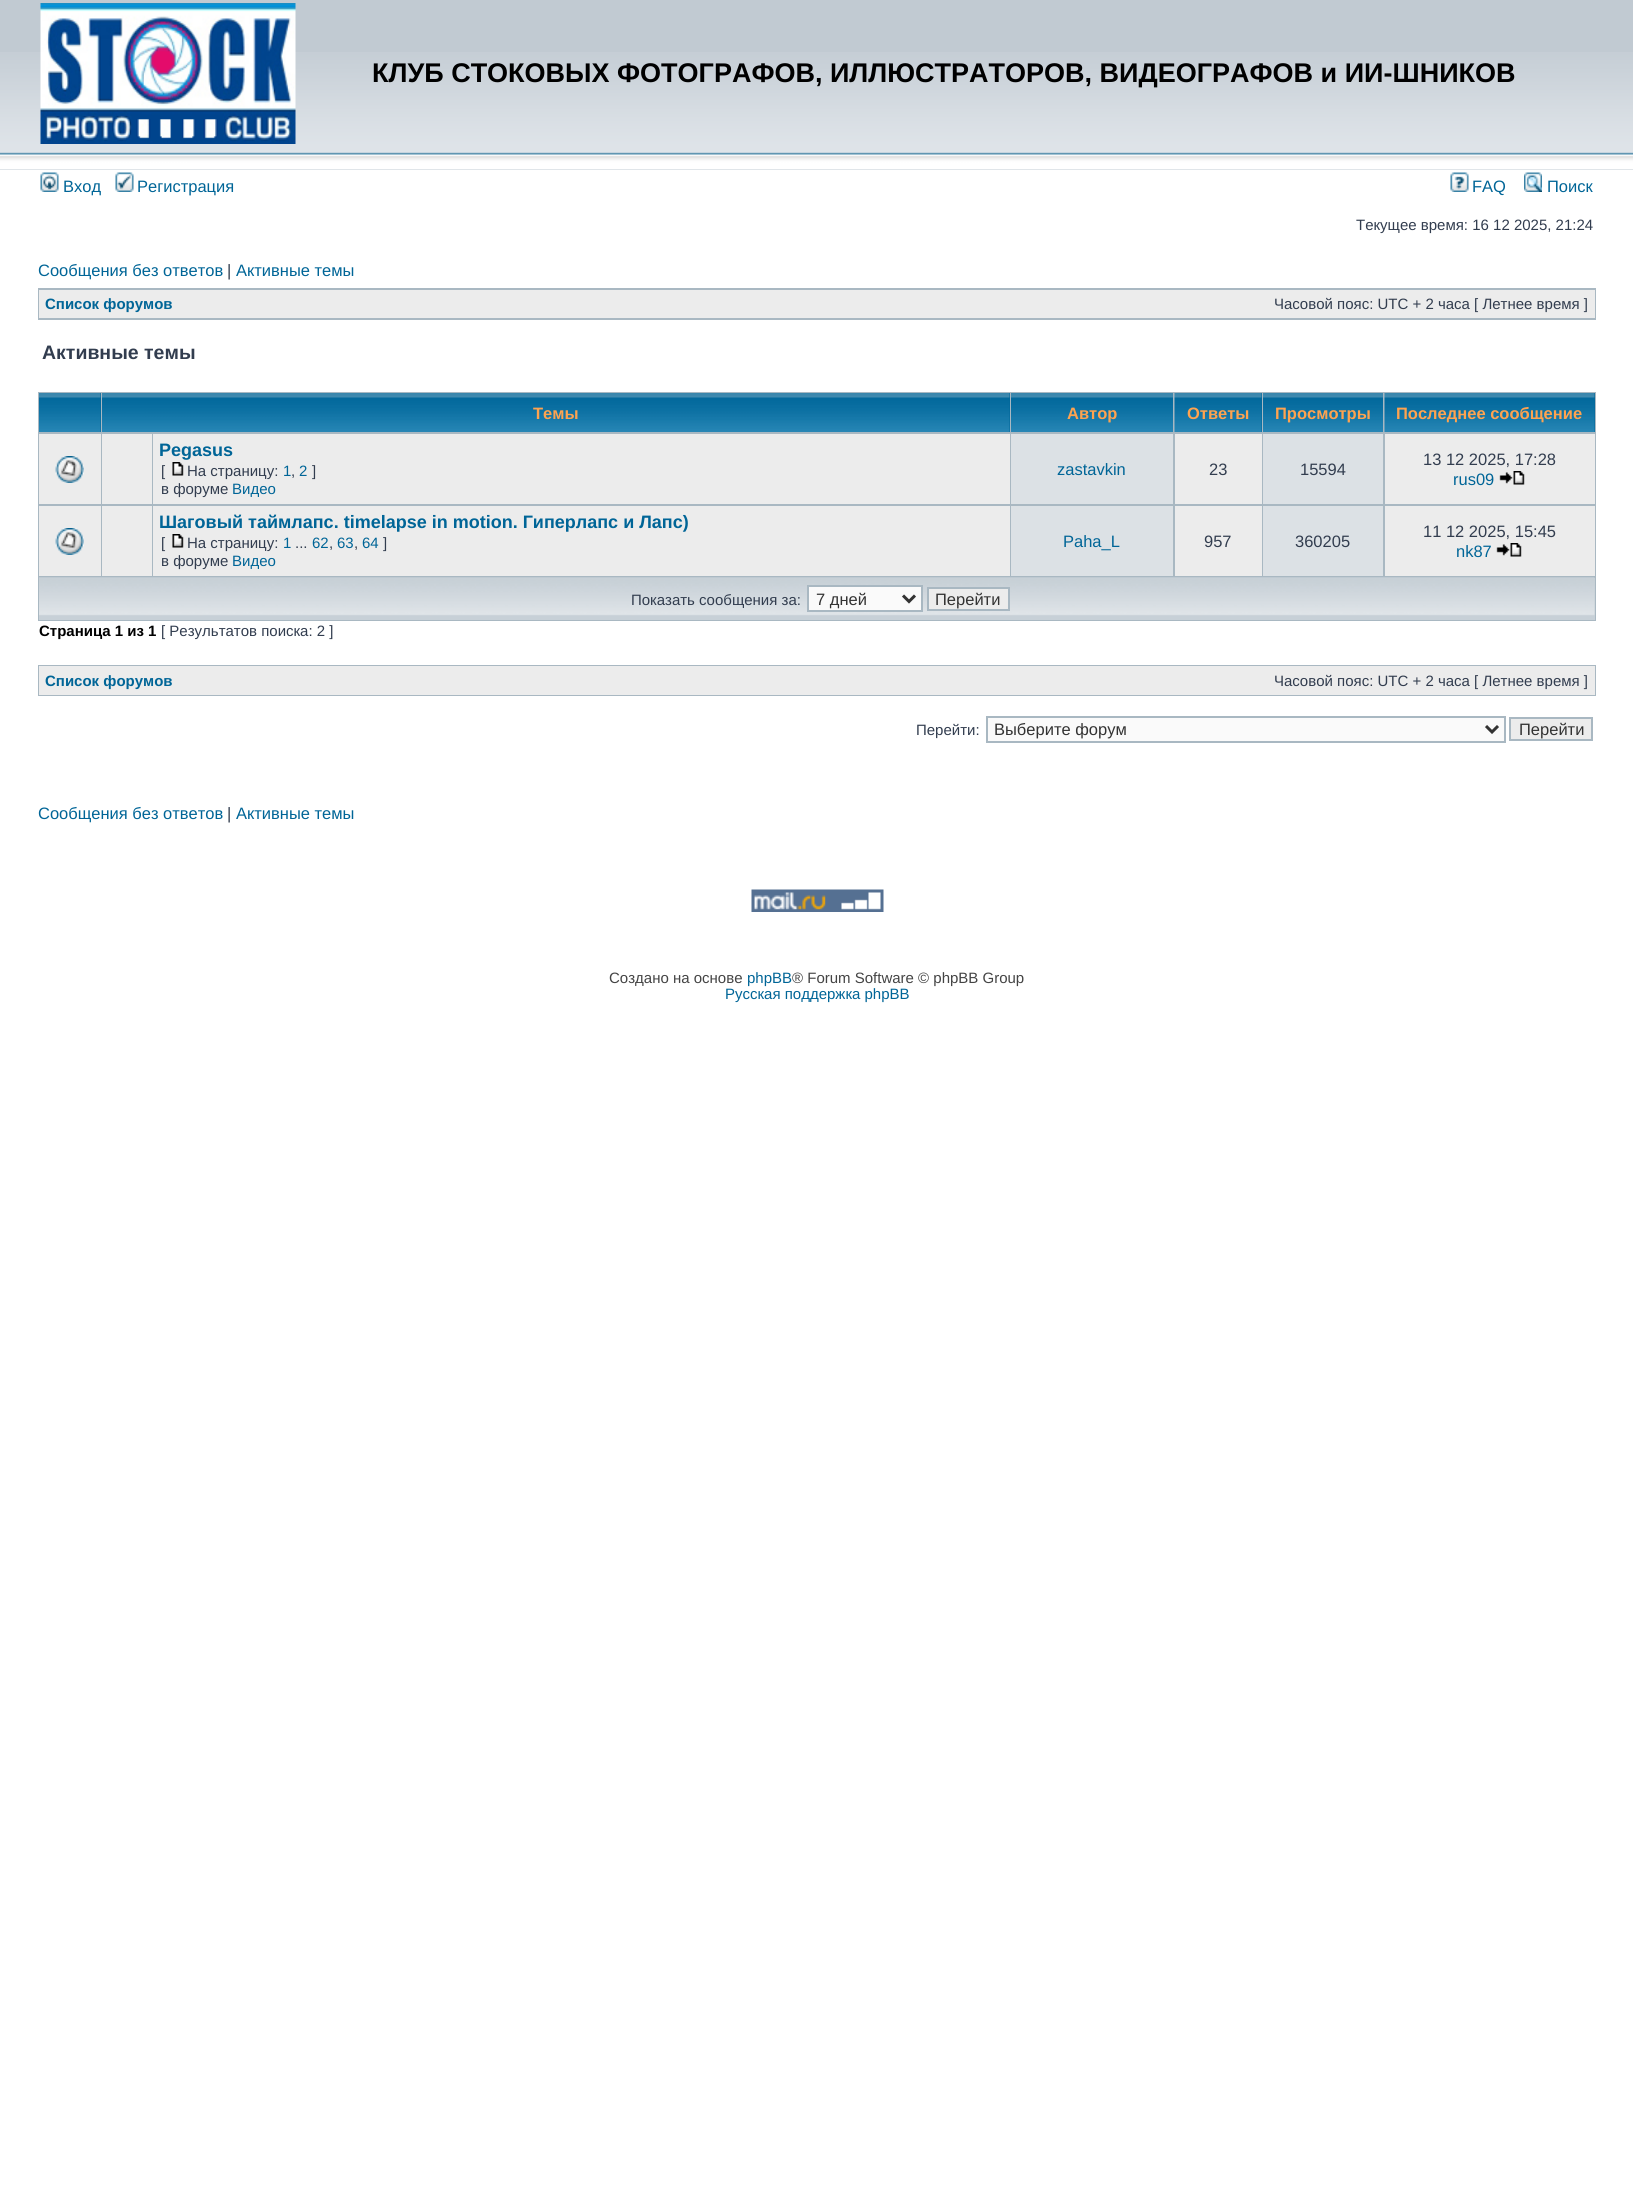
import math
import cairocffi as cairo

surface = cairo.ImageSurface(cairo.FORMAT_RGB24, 1633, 2211)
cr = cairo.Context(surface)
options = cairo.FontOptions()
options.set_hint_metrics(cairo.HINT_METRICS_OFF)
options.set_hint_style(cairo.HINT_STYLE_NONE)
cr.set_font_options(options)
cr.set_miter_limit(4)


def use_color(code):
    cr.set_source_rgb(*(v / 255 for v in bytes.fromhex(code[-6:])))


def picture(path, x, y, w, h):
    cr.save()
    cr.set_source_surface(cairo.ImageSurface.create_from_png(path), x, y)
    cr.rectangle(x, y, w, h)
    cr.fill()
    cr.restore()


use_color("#ffffff")
cr.paint()
use_color("#c1cad2")
cr.rectangle(0, 0, 1633, 170)
cr.fill()
picture("img1.png", 0, 52, 1633, 118)
picture("img2.png", 40, 3, 256, 141)
cr.select_font_face("Liberation Sans", cairo.FONT_SLANT_NORMAL, cairo.FONT_WEIGHT_BOLD)
cr.set_font_size(27)
use_color("#000000")
cr.move_to(372, 82)
cr.show_text("КЛУБ СТОКОВЫХ ФОТОГРАФОВ, ИЛЛЮСТРАТОРОВ, ВИДЕОГРАФОВ и ИИ-ШНИКОВ")
picture("img3.png", 40, 172, 19, 20)
cr.select_font_face("Liberation Sans")
cr.set_font_size(16.5)
use_color("#006597")
cr.move_to(63, 192)
cr.show_text("Вход")
picture("img4.png", 115, 172, 19, 20)
cr.move_to(137, 192)
cr.show_text("Регистрация")
picture("img5.png", 1450, 172, 19, 20)
cr.move_to(1472, 192)
cr.show_text("FAQ")
picture("img6.png", 1524, 172, 18, 20)
cr.move_to(1547, 192)
cr.show_text("Поиск")
cr.set_font_size(15)
use_color("#323d4f")
cr.move_to(1356, 230)
cr.show_text("Текущее время: 16 12 2025, 21:24")
cr.set_font_size(16.5)
use_color("#006597")
cr.move_to(38, 276)
cr.show_text("Сообщения без ответов")
use_color("#323d4f")
cr.move_to(227, 276)
cr.show_text("|")
use_color("#006597")
cr.move_to(236, 276)
cr.show_text("Активные темы")
use_color("#a9b8c2")
cr.rectangle(38, 288, 1558, 32)
cr.fill()
use_color("#ececec")
cr.rectangle(39, 290, 1556, 28)
cr.fill()
cr.select_font_face("Liberation Sans", cairo.FONT_SLANT_NORMAL, cairo.FONT_WEIGHT_BOLD)
cr.set_font_size(15)
use_color("#006597")
cr.move_to(45, 309)
cr.show_text("Список форумов")
cr.select_font_face("Liberation Sans")
use_color("#323d4f")
cr.move_to(1274, 309)
cr.show_text("Часовой пояс: UTC + 2 часа [ Летнее время ]")
cr.select_font_face("Liberation Sans", cairo.FONT_SLANT_NORMAL, cairo.FONT_WEIGHT_BOLD)
cr.set_font_size(19.5)
cr.move_to(42, 359)
cr.show_text("Активные темы")
use_color("#a9b8c2")
cr.rectangle(38, 392, 1558, 229)
cr.fill()
use_color("#006699")
cr.rectangle(100, 393, 1, 39)
cr.fill()
picture("img7.png", 39, 393, 62, 39)
cr.rectangle(1009, 393, 1, 39)
cr.fill()
picture("img8.png", 102, 393, 908, 39)
cr.set_font_size(16.5)
use_color("#ffa34f")
cr.move_to(533, 419)
cr.show_text("Темы")
picture("img9.png", 1011, 393, 162, 39)
cr.move_to(1067, 419)
cr.show_text("Автор")
use_color("#006699")
cr.rectangle(1261, 393, 1, 39)
cr.fill()
picture("img10.png", 1174, 393, 88, 39)
use_color("#ffa34f")
cr.move_to(1187, 419)
cr.show_text("Ответы")
picture("img11.png", 1263, 393, 120, 39)
cr.move_to(1275, 419)
cr.show_text("Просмотры")
use_color("#006699")
cr.rectangle(1594, 393, 1, 39)
cr.fill()
picture("img12.png", 1384, 393, 211, 39)
use_color("#ffa34f")
cr.move_to(1396, 419)
cr.show_text("Последнее сообщение")
use_color("#ececec")
cr.rectangle(39, 434, 62, 70)
cr.fill()
picture("img13.png", 55, 456, 29, 27)
cr.rectangle(102, 434, 50, 70)
cr.fill()
cr.rectangle(153, 434, 857, 70)
cr.fill()
cr.set_font_size(18)
use_color("#006597")
cr.move_to(159, 456)
cr.show_text("Pegasus")
cr.select_font_face("Liberation Sans")
cr.set_font_size(15)
use_color("#323d4f")
cr.move_to(161, 476)
cr.show_text("[")
picture("img14.png", 172, 462, 12, 14)
cr.move_to(187, 476)
cr.show_text("На страницу:")
use_color("#006597")
cr.move_to(283, 476)
cr.show_text("1")
use_color("#323d4f")
cr.move_to(291, 476)
cr.show_text(",")
use_color("#006597")
cr.move_to(299, 476)
cr.show_text("2")
use_color("#323d4f")
cr.move_to(312, 476)
cr.show_text("]")
cr.move_to(161, 494)
cr.show_text("в форуме")
use_color("#006597")
cr.move_to(232, 494)
cr.show_text("Видео")
use_color("#dce1e5")
cr.rectangle(1011, 434, 162, 70)
cr.fill()
cr.set_font_size(16.5)
use_color("#006597")
cr.move_to(1057, 475)
cr.show_text("zastavkin")
use_color("#ececec")
cr.rectangle(1175, 434, 87, 70)
cr.fill()
use_color("#323d4f")
cr.move_to(1209, 475)
cr.show_text("23")
use_color("#dce1e5")
cr.rectangle(1263, 434, 120, 70)
cr.fill()
use_color("#323d4f")
cr.move_to(1300, 475)
cr.show_text("15594")
use_color("#ececec")
cr.rectangle(1385, 434, 210, 70)
cr.fill()
use_color("#323d4f")
cr.move_to(1423, 465)
cr.show_text("13 12 2025, 17:28")
use_color("#006597")
cr.move_to(1453, 485)
cr.show_text("rus09")
picture("img15.png", 1499, 471, 26, 14)
use_color("#ececec")
cr.rectangle(39, 506, 62, 70)
cr.fill()
picture("img16.png", 55, 528, 29, 27)
cr.rectangle(102, 506, 50, 70)
cr.fill()
cr.rectangle(153, 506, 857, 70)
cr.fill()
cr.select_font_face("Liberation Sans", cairo.FONT_SLANT_NORMAL, cairo.FONT_WEIGHT_BOLD)
cr.set_font_size(18)
use_color("#006597")
cr.move_to(159, 528)
cr.show_text("Шаговый таймлапс. timelapse in motion. Гиперлапс и Лапс)")
cr.select_font_face("Liberation Sans")
cr.set_font_size(15)
use_color("#323d4f")
cr.move_to(161, 548)
cr.show_text("[")
picture("img14.png", 172, 534, 12, 14)
cr.move_to(187, 548)
cr.show_text("На страницу:")
use_color("#006597")
cr.move_to(283, 548)
cr.show_text("1")
use_color("#323d4f")
cr.move_to(295, 548)
cr.show_text("...")
use_color("#006597")
cr.move_to(312, 548)
cr.show_text("62")
use_color("#323d4f")
cr.move_to(329, 548)
cr.show_text(",")
use_color("#006597")
cr.move_to(337, 548)
cr.show_text("63")
use_color("#323d4f")
cr.move_to(354, 548)
cr.show_text(",")
use_color("#006597")
cr.move_to(362, 548)
cr.show_text("64")
use_color("#323d4f")
cr.move_to(383, 548)
cr.show_text("]")
cr.move_to(161, 566)
cr.show_text("в форуме")
use_color("#006597")
cr.move_to(232, 566)
cr.show_text("Видео")
use_color("#dce1e5")
cr.rectangle(1011, 506, 162, 70)
cr.fill()
cr.set_font_size(16.5)
use_color("#006597")
cr.move_to(1063, 547)
cr.show_text("Paha_L")
use_color("#ececec")
cr.rectangle(1175, 506, 87, 70)
cr.fill()
use_color("#323d4f")
cr.move_to(1204, 547)
cr.show_text("957")
use_color("#dce1e5")
cr.rectangle(1263, 506, 120, 70)
cr.fill()
use_color("#323d4f")
cr.move_to(1295, 547)
cr.show_text("360205")
use_color("#ececec")
cr.rectangle(1385, 506, 210, 70)
cr.fill()
use_color("#323d4f")
cr.move_to(1423, 537)
cr.show_text("11 12 2025, 15:45")
use_color("#006597")
cr.move_to(1456, 557)
cr.show_text("nk87")
picture("img15.png", 1496, 543, 26, 14)
use_color("#c7d0d7")
cr.rectangle(39, 578, 1556, 42)
cr.fill()
picture("img17.png", 39, 577, 1556, 39)
cr.set_font_size(15)
use_color("#323d4f")
cr.move_to(631, 605)
cr.show_text("Показать сообщения за:")
use_color("#fafafa")
cr.rectangle(808, 586, 114, 25)
cr.fill_preserve()
use_color("#a9b8c2")
cr.stroke()
cr.new_path()
cr.move_to(903, 595.5)
cr.line_to(909, 601.5)
cr.line_to(915, 595.5)
use_color("#333333")
cr.set_line_width(3)
cr.stroke()
cr.set_font_size(16.5)
cr.move_to(816, 605)
cr.show_text("7 дней")
use_color("#ececec")
cr.rectangle(928, 588, 81, 22)
cr.fill_preserve()
use_color("#a9b8c2")
cr.set_line_width(2)
cr.stroke()
use_color("#333333")
cr.move_to(935, 605)
cr.show_text("Перейти")
cr.select_font_face("Liberation Sans", cairo.FONT_SLANT_NORMAL, cairo.FONT_WEIGHT_BOLD)
cr.set_font_size(15)
use_color("#000000")
cr.move_to(39, 636)
cr.show_text("Страница 1 из 1")
cr.select_font_face("Liberation Sans")
use_color("#323d4f")
cr.move_to(161, 636)
cr.show_text("[ Результатов поиска: 2 ]")
use_color("#a9b8c2")
cr.rectangle(38, 665, 1558, 31)
cr.fill()
use_color("#ececec")
cr.rectangle(39, 666, 1556, 29)
cr.fill()
cr.select_font_face("Liberation Sans", cairo.FONT_SLANT_NORMAL, cairo.FONT_WEIGHT_BOLD)
use_color("#006597")
cr.move_to(45, 686)
cr.show_text("Список форумов")
cr.select_font_face("Liberation Sans")
use_color("#323d4f")
cr.move_to(1274, 686)
cr.show_text("Часовой пояс: UTC + 2 часа [ Летнее время ]")
cr.move_to(916, 735)
cr.show_text("Перейти:")
use_color("#fafafa")
cr.rectangle(987, 717, 518, 25)
cr.fill_preserve()
use_color("#a9b8c2")
cr.stroke()
cr.new_path()
cr.move_to(1486, 726)
cr.line_to(1492, 732)
cr.line_to(1498, 726)
use_color("#333333")
cr.set_line_width(3)
cr.stroke()
cr.set_font_size(16.5)
cr.move_to(994, 735)
cr.show_text("Выберите форум")
use_color("#ececec")
cr.rectangle(1510, 718, 82, 22)
cr.fill_preserve()
use_color("#a9b8c2")
cr.set_line_width(2)
cr.stroke()
use_color("#333333")
cr.move_to(1519, 735)
cr.show_text("Перейти")
use_color("#006597")
cr.move_to(38, 819)
cr.show_text("Сообщения без ответов")
use_color("#323d4f")
cr.move_to(227, 819)
cr.show_text("|")
use_color("#006597")
cr.move_to(236, 819)
cr.show_text("Активные темы")
picture("img18.png", 751, 889, 133, 23)
cr.set_font_size(15)
use_color("#444444")
cr.move_to(609, 983)
cr.show_text("Создано на основе")
use_color("#006597")
cr.move_to(747, 983)
cr.show_text("phpBB")
use_color("#444444")
cr.move_to(792, 983)
cr.show_text("® Forum Software © phpBB Group")
use_color("#006597")
cr.move_to(725, 999)
cr.show_text("Русская поддержка phpBB")
surface.write_to_png("result.png")
